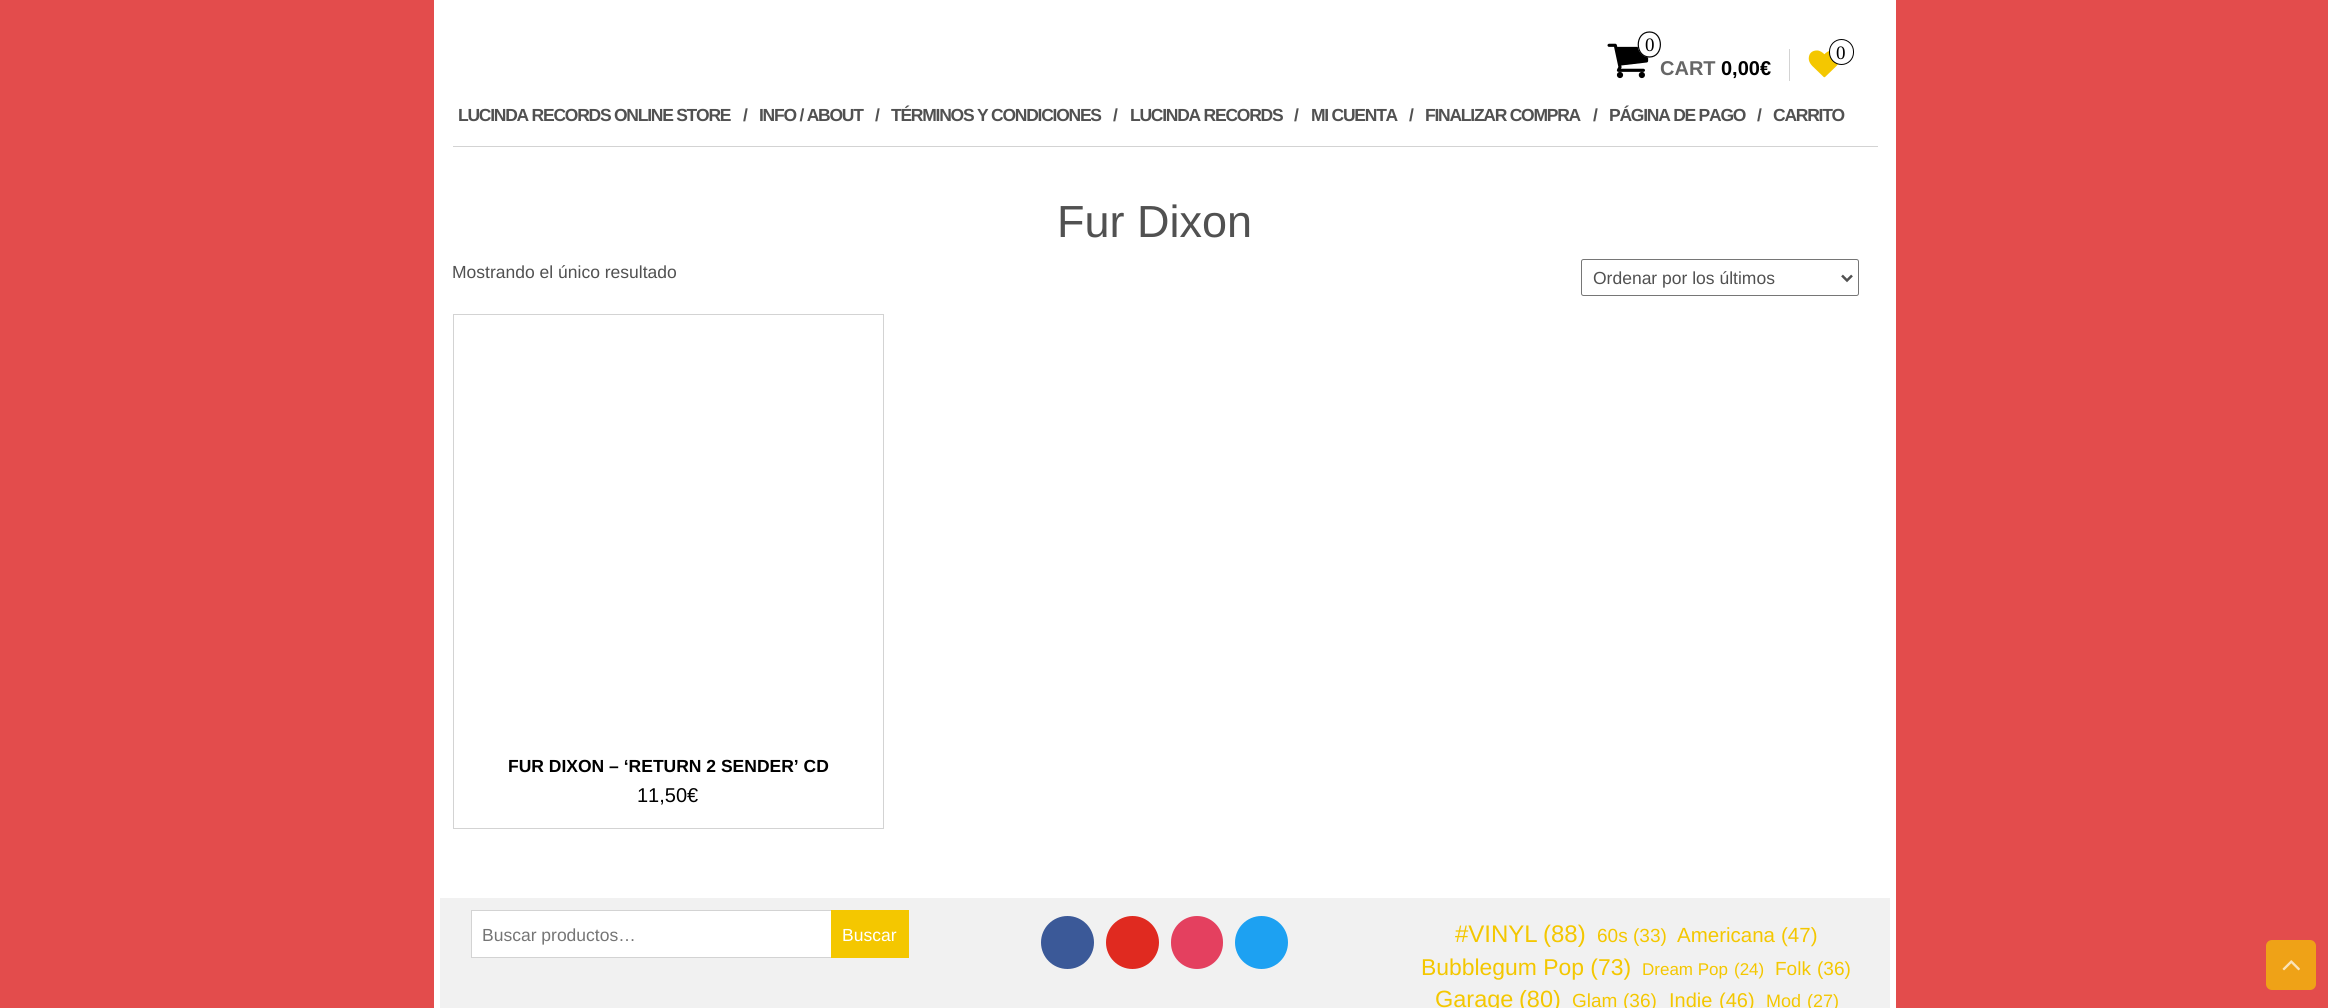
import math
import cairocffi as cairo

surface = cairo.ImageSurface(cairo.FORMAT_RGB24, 2328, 1008)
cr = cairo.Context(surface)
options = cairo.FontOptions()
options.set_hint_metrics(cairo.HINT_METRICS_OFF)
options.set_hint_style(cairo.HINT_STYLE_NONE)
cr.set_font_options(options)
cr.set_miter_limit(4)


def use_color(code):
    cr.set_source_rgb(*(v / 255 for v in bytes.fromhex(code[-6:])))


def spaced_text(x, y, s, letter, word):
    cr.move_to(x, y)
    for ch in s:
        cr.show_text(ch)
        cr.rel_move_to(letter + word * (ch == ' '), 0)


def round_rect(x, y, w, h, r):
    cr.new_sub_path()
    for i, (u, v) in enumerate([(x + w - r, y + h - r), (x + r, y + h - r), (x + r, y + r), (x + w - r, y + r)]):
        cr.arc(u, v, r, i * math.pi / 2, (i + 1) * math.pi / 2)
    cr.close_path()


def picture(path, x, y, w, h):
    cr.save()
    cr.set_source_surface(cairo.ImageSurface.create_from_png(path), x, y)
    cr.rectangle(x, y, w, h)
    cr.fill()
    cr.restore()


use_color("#e34c4c")
cr.paint()
use_color("#ffffff")
cr.rectangle(434, 0, 1462, 1008)
cr.fill()
picture("img1.png", 1607, 43, 42, 36)
cr.new_path()
cr.move_to(1649.5, 31.5)
cr.curve_to(1656, 31.5, 1661.5, 37.5, 1661.5, 44.5)
cr.curve_to(1661.5, 51.5, 1656, 57.5, 1649.5, 57.5)
cr.curve_to(1643, 57.5, 1637.5, 51.5, 1637.5, 44.5)
cr.curve_to(1637.5, 37.5, 1643, 31.5, 1649.5, 31.5)
cr.close_path()
cr.fill()
cr.new_path()
cr.move_to(1649.5, 32)
cr.curve_to(1664, 32, 1664, 57, 1649.5, 57)
cr.curve_to(1634.5, 57, 1634.5, 32, 1649.5, 32)
cr.close_path()
use_color("#000000")
cr.set_line_width(1.2)
cr.stroke()
cr.select_font_face("Liberation Serif")
cr.set_font_size(19)
cr.move_to(1645, 51)
cr.show_text("0")
cr.select_font_face("Liberation Sans", cairo.FONT_SLANT_NORMAL, cairo.FONT_WEIGHT_BOLD)
cr.set_font_size(20)
use_color("#666666")
cr.move_to(1660, 75)
cr.show_text("CART")
use_color("#000000")
cr.move_to(1721, 75)
cr.show_text("0,00€")
use_color("#d3d3d3")
cr.rectangle(1789, 49, 1, 32)
cr.fill()
picture("img2.png", 1808, 50, 30, 28)
use_color("#ffffff")
round_rect(1829.5, 39.5, 24, 25, 12)
cr.fill_preserve()
use_color("#000000")
cr.set_line_width(1)
cr.stroke()
cr.select_font_face("Liberation Serif")
cr.set_font_size(19)
cr.move_to(1836, 59)
cr.show_text("0")
use_color("#d3d3d3")
cr.rectangle(453, 146, 1425, 1)
cr.fill()
cr.select_font_face("Liberation Sans", cairo.FONT_SLANT_NORMAL, cairo.FONT_WEIGHT_BOLD)
cr.set_font_size(17.5)
use_color("#515151")
spaced_text(458, 121, "LUCINDA RECORDS ONLINE STORE", -1.25, 0)
spaced_text(743, 121, "/", -1.25, 0)
spaced_text(759, 121, "INFO / ABOUT", -1.25, 0)
spaced_text(875, 121, "/", -1.25, 0)
spaced_text(891, 121, "TÉRMINOS Y CONDICIONES", -1.25, 0)
spaced_text(1113, 121, "/", -1.25, 0)
spaced_text(1130, 121, "LUCINDA RECORDS", -1.25, 0)
spaced_text(1294, 121, "/", -1.25, 0)
spaced_text(1311, 121, "MI CUENTA", -1.25, 0)
spaced_text(1409, 121, "/", -1.25, 0)
spaced_text(1425, 121, "FINALIZAR COMPRA", -1.25, 0)
spaced_text(1593, 121, "/", -1.25, 0)
spaced_text(1609, 121, "PÁGINA DE PAGO", -1.25, 0)
spaced_text(1757, 121, "/", -1.25, 0)
spaced_text(1773, 121, "CARRITO", -1.25, 0)
cr.select_font_face("Liberation Sans")
cr.set_font_size(45)
cr.move_to(1057, 237)
cr.show_text("Fur Dixon")
cr.set_font_size(17.5)
cr.move_to(452, 278)
cr.show_text("Mostrando el único resultado")
round_rect(1581.5, 259.5, 277, 36, 2)
use_color("#767676")
cr.stroke()
cr.new_path()
cr.move_to(1842, 275.5)
cr.line_to(1847, 280.5)
cr.line_to(1852, 275.5)
use_color("#515151")
cr.set_line_width(2.5)
cr.stroke()
cr.move_to(1593, 284)
cr.show_text("Ordenar por los últimos")
cr.rectangle(453.5, 314.5, 430, 514)
use_color("#d3d3d3")
cr.set_line_width(1)
cr.stroke()
cr.select_font_face("Liberation Sans", cairo.FONT_SLANT_NORMAL, cairo.FONT_WEIGHT_BOLD)
use_color("#000000")
cr.move_to(508, 772)
cr.show_text("FUR DIXON – ‘RETURN 2 SENDER’ CD")
cr.select_font_face("Liberation Sans")
cr.set_font_size(20)
cr.move_to(637, 802)
cr.show_text("11,50€")
use_color("#f1f1f1")
cr.rectangle(440, 898, 1450, 110)
cr.fill()
use_color("#ffffff")
cr.rectangle(472, 911, 359, 46)
cr.fill()
cr.rectangle(471.5, 910.5, 437, 47)
use_color("#d3d3d3")
cr.stroke()
cr.set_font_size(17.5)
use_color("#757575")
cr.move_to(482, 941)
cr.show_text("Buscar productos…")
use_color("#f4c700")
cr.rectangle(831, 910, 78, 48)
cr.fill()
use_color("#ffffff")
cr.move_to(842, 941)
cr.show_text("Buscar")
use_color("#3b5998")
cr.new_path()
cr.arc(1067.5, 942.5, 26.5, 0, 2 * math.pi)
cr.fill()
use_color("#e02a20")
cr.arc(1132.5, 942.5, 26.5, 0, 2 * math.pi)
cr.fill()
use_color("#e4405f")
round_rect(1171, 916, 52, 53, 26)
cr.fill()
use_color("#1da1f2")
cr.arc(1261.5, 942.5, 26.5, 0, 2 * math.pi)
cr.fill()
cr.set_font_size(24)
use_color("#f4c700")
cr.move_to(1455, 942)
cr.show_text("#VINYL")
cr.move_to(1543, 942)
cr.show_text("(88)")
cr.set_font_size(19)
cr.move_to(1597, 942)
cr.show_text("60s")
cr.move_to(1633, 942)
cr.show_text("(33)")
cr.set_font_size(20.5)
cr.move_to(1677, 942)
cr.show_text("Americana")
cr.move_to(1781, 942)
cr.show_text("(47)")
cr.set_font_size(22.9)
cr.move_to(1421, 975)
cr.show_text("Bubblegum Pop (73)")
cr.set_font_size(17)
cr.move_to(1642, 975)
cr.show_text("Dream Pop")
cr.move_to(1734, 975)
cr.show_text("(24)")
cr.set_font_size(19)
cr.move_to(1775, 975)
cr.show_text("Folk")
cr.move_to(1817, 975)
cr.show_text("(36)")
cr.set_font_size(23.5)
cr.move_to(1435, 1007)
cr.show_text("Garage")
cr.move_to(1519, 1007)
cr.show_text("(80)")
cr.set_font_size(19)
cr.move_to(1572, 1007)
cr.show_text("Glam")
cr.move_to(1623, 1007)
cr.show_text("(36)")
cr.set_font_size(20)
cr.move_to(1669, 1007)
cr.show_text("Indie")
cr.move_to(1719, 1007)
cr.show_text("(46)")
cr.set_font_size(18)
cr.move_to(1766, 1007)
cr.show_text("Mod")
cr.move_to(1807, 1007)
cr.show_text("(27)")
use_color("#efa217")
round_rect(2266, 940, 50, 50, 6)
cr.fill()
picture("img3.png", 2282, 960, 18, 11)
surface.write_to_png("result.png")
